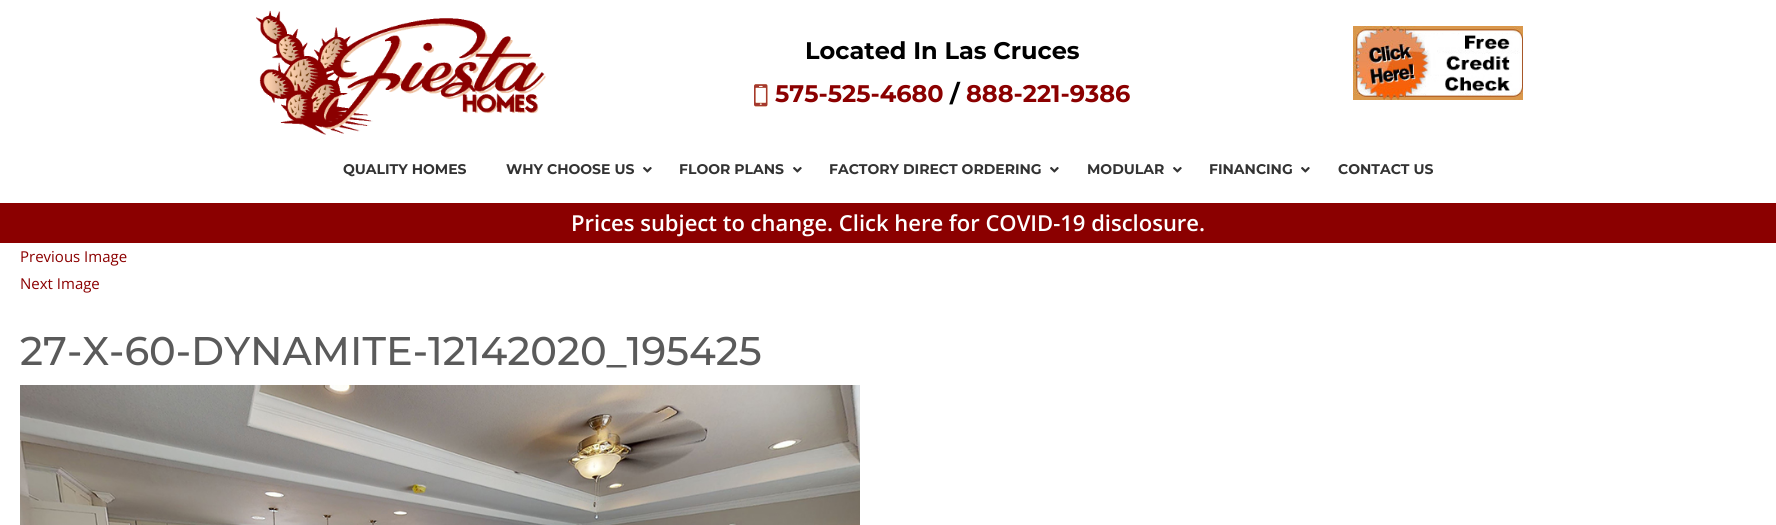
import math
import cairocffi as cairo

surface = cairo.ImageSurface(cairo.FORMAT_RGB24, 1776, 525)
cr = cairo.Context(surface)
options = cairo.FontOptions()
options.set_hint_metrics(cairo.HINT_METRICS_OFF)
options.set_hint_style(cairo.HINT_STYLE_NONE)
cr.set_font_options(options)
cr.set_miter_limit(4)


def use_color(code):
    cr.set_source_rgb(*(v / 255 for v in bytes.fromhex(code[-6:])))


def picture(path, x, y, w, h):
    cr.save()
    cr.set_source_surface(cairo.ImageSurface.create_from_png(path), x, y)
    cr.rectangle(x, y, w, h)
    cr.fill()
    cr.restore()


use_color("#ffffff")
cr.paint()
picture("img1.png", 256, 10, 290, 125)
cr.select_font_face("Montserrat", cairo.FONT_SLANT_NORMAL, cairo.FONT_WEIGHT_BOLD)
cr.set_font_size(24)
use_color("#000000")
cr.move_to(805, 59)
cr.show_text("Located In Las Cruces")
picture("img2.png", 754, 84, 14, 23)
use_color("#8b0000")
cr.move_to(775, 102)
cr.show_text("575-525-4680")
use_color("#000000")
cr.move_to(950, 102)
cr.show_text("/")
use_color("#8b0000")
cr.move_to(966, 102)
cr.show_text("888-221-9386")
picture("img3.png", 1353, 26, 170, 74)
cr.set_font_size(14)
use_color("#333333")
cr.move_to(343, 174)
cr.show_text("QUALITY HOMES")
cr.move_to(506, 174)
cr.show_text("WHY CHOOSE US")
picture("img4.png", 643, 167, 9, 6)
cr.move_to(679, 174)
cr.show_text("FLOOR PLANS")
picture("img4.png", 793, 167, 9, 6)
cr.move_to(829, 174)
cr.show_text("FACTORY DIRECT ORDERING")
picture("img4.png", 1050, 167, 9, 6)
cr.move_to(1087, 174)
cr.show_text("MODULAR")
picture("img4.png", 1173, 167, 9, 6)
cr.move_to(1209, 174)
cr.show_text("FINANCING")
picture("img4.png", 1301, 167, 9, 6)
cr.move_to(1338, 174)
cr.show_text("CONTACT US")
use_color("#8b0000")
cr.rectangle(0, 203, 1776, 40)
cr.fill()
cr.select_font_face("Open Sans SemiBold")
cr.set_font_size(22)
use_color("#ffffff")
cr.move_to(571, 231)
cr.show_text("Prices subject to change. Click here for COVID-19 disclosure.")
cr.select_font_face("Open Sans")
cr.set_font_size(15)
use_color("#8b0000")
cr.move_to(20, 262)
cr.show_text("Previous Image")
cr.move_to(20, 289)
cr.show_text("Next Image")
cr.select_font_face("Montserrat Medium")
cr.set_font_size(40)
use_color("#5a5a5a")
cr.move_to(20, 365)
cr.show_text("27-X-60-DYNAMITE-12142020_195425")
picture("img5.png", 20, 385, 840, 140)
surface.write_to_png("result.png")
